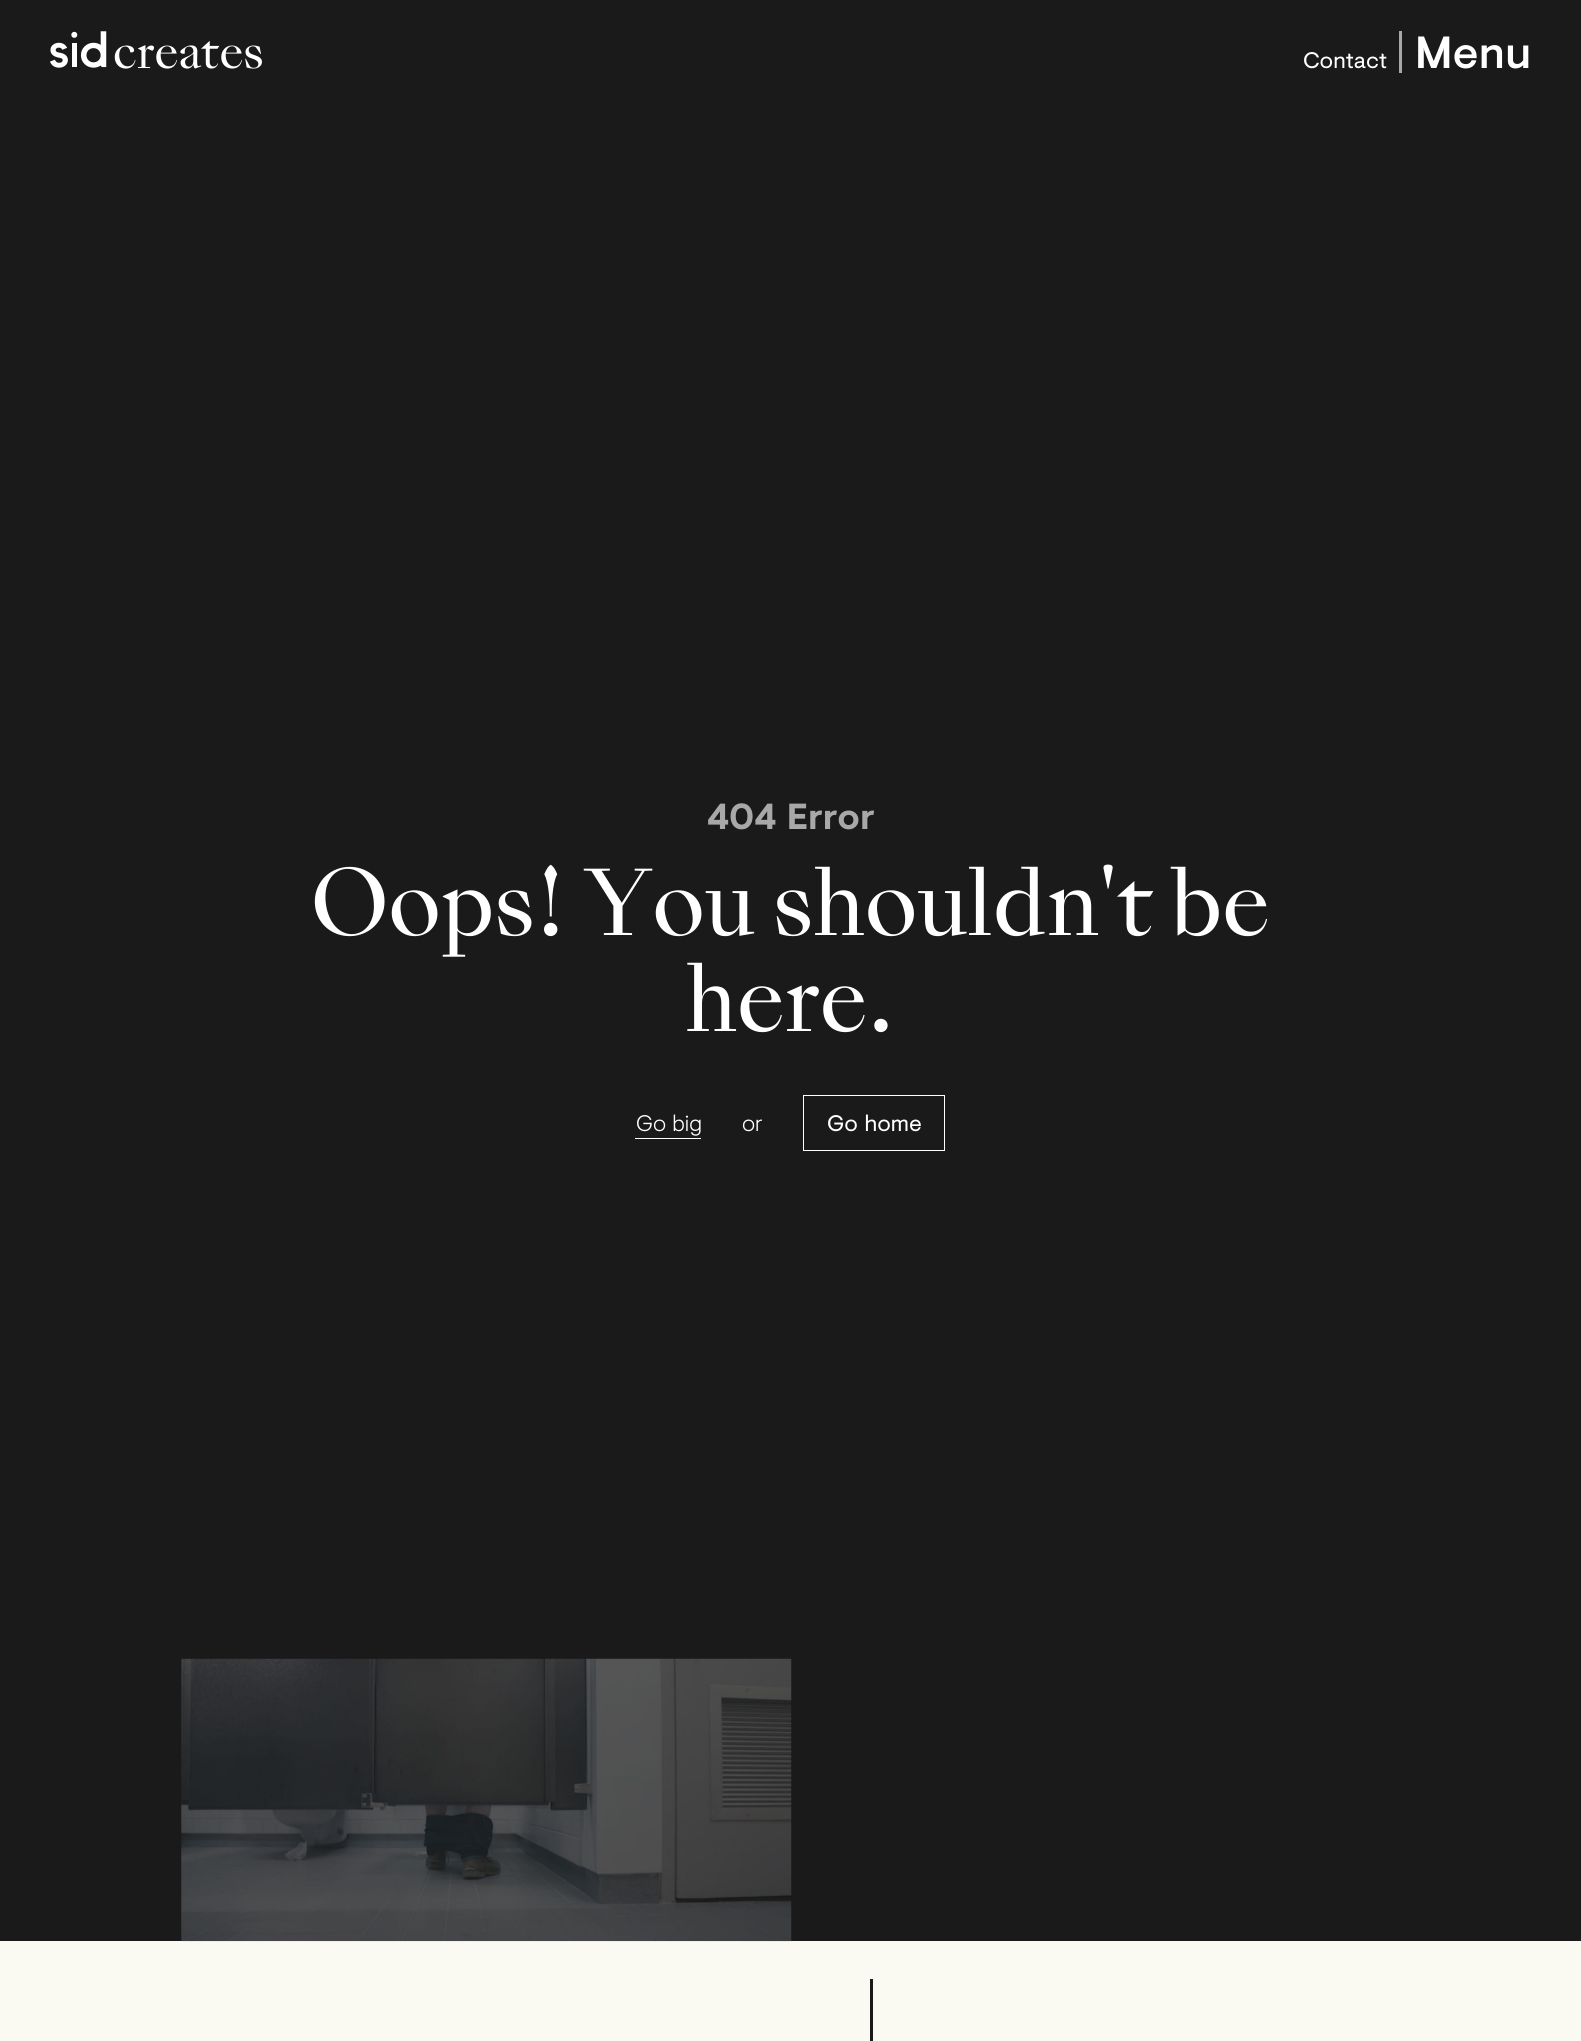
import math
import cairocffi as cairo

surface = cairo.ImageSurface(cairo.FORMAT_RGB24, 1581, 2041)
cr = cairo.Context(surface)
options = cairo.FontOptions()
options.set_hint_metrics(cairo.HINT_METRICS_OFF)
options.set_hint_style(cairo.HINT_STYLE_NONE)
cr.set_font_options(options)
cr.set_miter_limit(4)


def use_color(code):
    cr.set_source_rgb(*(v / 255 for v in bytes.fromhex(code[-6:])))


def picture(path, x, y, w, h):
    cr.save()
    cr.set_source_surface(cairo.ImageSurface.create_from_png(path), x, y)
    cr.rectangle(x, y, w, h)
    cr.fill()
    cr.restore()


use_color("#1a1a1a")
cr.paint()
picture("img1.png", 50, 31, 57, 37)
cr.select_font_face("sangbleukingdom")
cr.set_font_size(44)
use_color("#ffffff")
cr.move_to(113, 68)
cr.show_text("creates")
cr.select_font_face("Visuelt")
cr.set_font_size(22.5)
cr.move_to(1303, 68)
cr.show_text("Contact")
use_color("#a8a8a8")
cr.rectangle(1399, 31, 3, 42)
cr.fill()
cr.select_font_face("Visuelt Medium")
cr.set_font_size(45)
use_color("#ffffff")
cr.move_to(1415, 68)
cr.show_text("Menu")
cr.select_font_face("Visuelt", cairo.FONT_SLANT_NORMAL, cairo.FONT_WEIGHT_BOLD)
cr.set_font_size(36.25)
use_color("#a8a8a8")
cr.move_to(707, 829)
cr.show_text("404 Error")
cr.select_font_face("sangbleukingdom")
cr.set_font_size(87.5)
use_color("#ffffff")
cr.move_to(311, 935)
cr.show_text("Oops! You shouldn't be")
cr.move_to(686, 1031)
cr.show_text("here.")
cr.select_font_face("Visuelt Light")
cr.set_font_size(22.5)
cr.move_to(636, 1131)
cr.show_text("Go big")
cr.rectangle(635, 1138, 66, 1)
cr.fill()
cr.move_to(742, 1131)
cr.show_text("or")
cr.rectangle(803.5, 1095.5, 141, 55)
cr.set_line_width(1)
cr.stroke()
cr.select_font_face("Visuelt")
cr.move_to(827, 1131)
cr.show_text("Go home")
use_color("#faf9f2")
cr.rectangle(0, 1941, 1581, 100)
cr.fill()
picture("img2.png", 181, 1658, 611, 284)
use_color("#191919")
cr.rectangle(870, 1979, 3, 62)
cr.fill()
surface.write_to_png("result.png")
